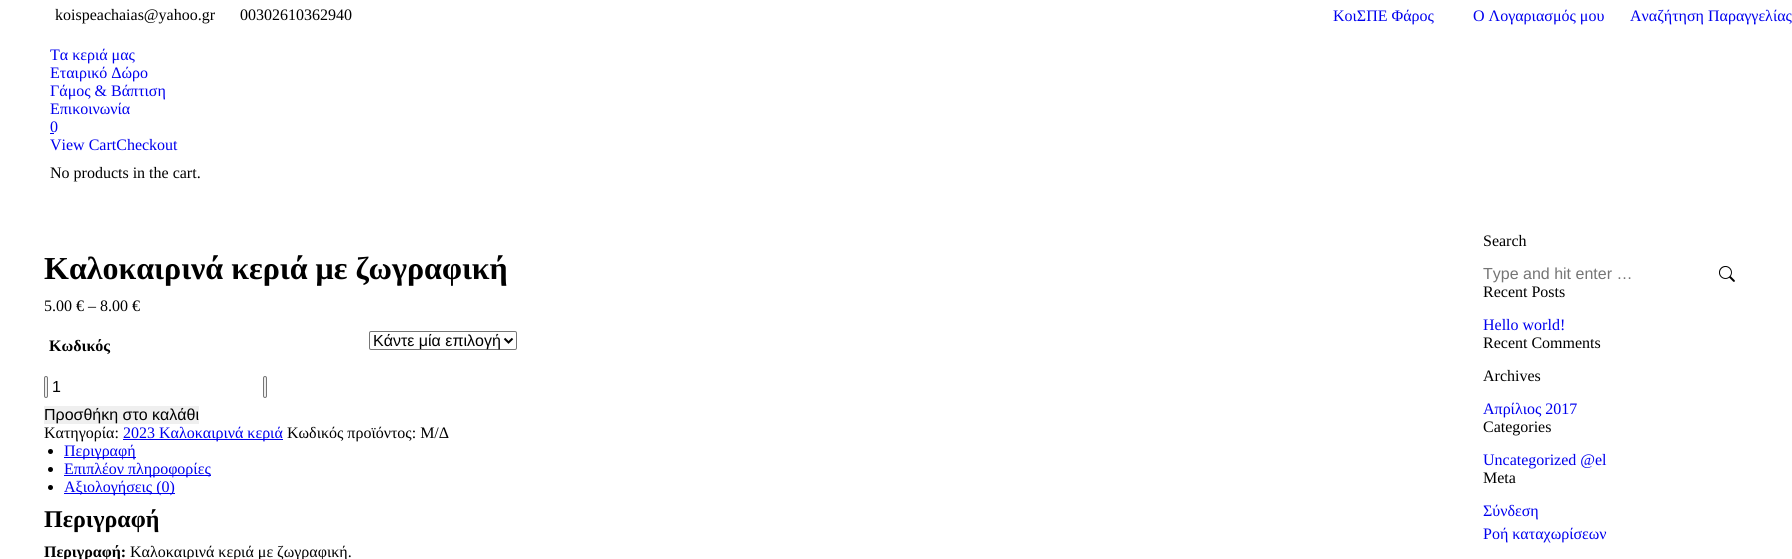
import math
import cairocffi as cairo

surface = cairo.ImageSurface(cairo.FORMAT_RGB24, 1792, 559)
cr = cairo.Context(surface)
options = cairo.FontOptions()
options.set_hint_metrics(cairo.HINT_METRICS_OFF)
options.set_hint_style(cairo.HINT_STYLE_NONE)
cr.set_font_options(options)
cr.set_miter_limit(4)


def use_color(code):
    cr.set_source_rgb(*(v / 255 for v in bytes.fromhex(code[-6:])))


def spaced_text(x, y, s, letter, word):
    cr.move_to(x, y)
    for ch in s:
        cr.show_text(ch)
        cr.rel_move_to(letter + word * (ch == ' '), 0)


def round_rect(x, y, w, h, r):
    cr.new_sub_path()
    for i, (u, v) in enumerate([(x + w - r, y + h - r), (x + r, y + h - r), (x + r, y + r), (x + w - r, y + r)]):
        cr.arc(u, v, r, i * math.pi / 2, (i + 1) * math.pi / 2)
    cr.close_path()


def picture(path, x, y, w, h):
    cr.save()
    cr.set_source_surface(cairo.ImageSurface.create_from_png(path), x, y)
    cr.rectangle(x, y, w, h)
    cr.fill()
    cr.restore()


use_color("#ffffff")
cr.paint()
cr.select_font_face("Liberation Serif")
cr.set_font_size(16)
use_color("#000000")
cr.move_to(55, 20)
cr.show_text("koispeachaias@yahoo.gr")
cr.move_to(240, 20)
cr.show_text("00302610362940")
use_color("#0000ee")
cr.move_to(1333, 21)
cr.show_text("ΚοιΣΠΕ Φάρος")
cr.move_to(1473, 21)
cr.show_text("Ο Λογαριασμός μου")
cr.move_to(1630, 21)
cr.show_text("Αναζήτηση Παραγγελίας")
cr.move_to(50, 60)
cr.show_text("Τα κεριά μας")
cr.move_to(50, 78)
cr.show_text("Εταιρικό Δώρο")
cr.move_to(50, 96)
cr.show_text("Γάμος & Βάπτιση")
cr.move_to(50, 114)
cr.show_text("Επικοινωνία")
spaced_text(50, 132, "0", -4, 0)
cr.rectangle(50, 133, 4, 1)
cr.fill()
cr.move_to(50, 150)
cr.show_text("View CartCheckout")
use_color("#000000")
cr.move_to(50, 178)
cr.show_text("No products in the cart.")
cr.select_font_face("Liberation Serif", cairo.FONT_SLANT_NORMAL, cairo.FONT_WEIGHT_BOLD)
cr.set_font_size(32)
cr.move_to(44, 279)
cr.show_text("Καλοκαιρινά κεριά με ζωγραφική")
cr.select_font_face("Liberation Serif")
cr.set_font_size(16)
cr.move_to(44, 311)
cr.show_text("5.00 € – 8.00 €")
cr.select_font_face("Liberation Serif", cairo.FONT_SLANT_NORMAL, cairo.FONT_WEIGHT_BOLD)
cr.move_to(49, 351)
cr.show_text("Κωδικός")
round_rect(369.5, 331.5, 147, 18, 1.5)
use_color("#767676")
cr.set_line_width(1)
cr.stroke()
cr.new_path()
cr.move_to(504.5, 338.5)
cr.line_to(508.5, 342.5)
cr.line_to(512.5, 338.5)
use_color("#000000")
cr.set_line_width(2)
cr.stroke()
cr.select_font_face("Liberation Sans")
cr.move_to(373, 346)
cr.show_text("Κάντε μία επιλογή")
use_color("#efefef")
round_rect(44.5, 376.5, 3, 21, 1.5)
cr.fill_preserve()
use_color("#767676")
cr.set_line_width(1)
cr.stroke()
use_color("#000000")
cr.move_to(52, 392)
cr.show_text("1")
use_color("#efefef")
round_rect(263.5, 376.5, 3, 21, 1.5)
cr.fill_preserve()
use_color("#767676")
cr.stroke()
use_color("#efefef")
cr.rectangle(44, 406, 155, 18)
cr.fill()
use_color("#000000")
cr.move_to(44, 420)
cr.show_text("Προσθήκη στο καλάθι")
cr.select_font_face("Liberation Serif")
cr.move_to(44, 438)
cr.show_text("Κατηγορία:")
use_color("#0000ee")
cr.rectangle(123, 439, 160, 1)
cr.fill()
cr.move_to(123, 438)
cr.show_text("2023 Καλοκαιρινά κεριά")
use_color("#000000")
cr.move_to(287, 438)
cr.show_text("Κωδικός προϊόντος: Μ/Δ")
cr.new_path()
cr.arc(50.5, 451.5, 2.5, 0, 2 * math.pi)
cr.fill()
use_color("#0000ee")
cr.rectangle(64, 457, 72, 1)
cr.fill()
cr.move_to(64, 456)
cr.show_text("Περιγραφή")
use_color("#000000")
cr.new_path()
cr.arc(50.5, 469.5, 2.5, 0, 2 * math.pi)
cr.fill()
use_color("#0000ee")
cr.rectangle(64, 475, 147, 1)
cr.fill()
cr.move_to(64, 474)
cr.show_text("Επιπλέον πληροφορίες")
use_color("#000000")
cr.new_path()
cr.arc(50.5, 487.5, 2.5, 0, 2 * math.pi)
cr.fill()
use_color("#0000ee")
cr.rectangle(64, 493, 111, 1)
cr.fill()
cr.move_to(64, 492)
cr.show_text("Αξιολογήσεις (0)")
cr.select_font_face("Liberation Serif", cairo.FONT_SLANT_NORMAL, cairo.FONT_WEIGHT_BOLD)
cr.set_font_size(24)
use_color("#000000")
cr.move_to(44, 527)
cr.show_text("Περιγραφή")
cr.set_font_size(16)
cr.move_to(44, 557)
cr.show_text("Περιγραφή:")
cr.select_font_face("Liberation Serif")
cr.move_to(130, 557)
cr.show_text("Καλοκαιρινά κεριά με ζωγραφική.")
cr.move_to(1483, 246)
cr.show_text("Search")
cr.select_font_face("Liberation Sans")
use_color("#757575")
cr.move_to(1483, 279)
cr.show_text("Type and hit enter …")
picture("img1.png", 1719, 266, 16, 16)
cr.select_font_face("Liberation Serif")
use_color("#000000")
cr.move_to(1483, 297)
cr.show_text("Recent Posts")
use_color("#0000ee")
cr.move_to(1483, 330)
cr.show_text("Hello world!")
use_color("#000000")
cr.move_to(1483, 348)
cr.show_text("Recent Comments")
cr.move_to(1483, 381)
cr.show_text("Archives")
use_color("#0000ee")
cr.move_to(1483, 414)
cr.show_text("Απρίλιος 2017")
use_color("#000000")
cr.move_to(1483, 432)
cr.show_text("Categories")
use_color("#0000ee")
cr.move_to(1483, 465)
cr.show_text("Uncategorized @el")
use_color("#000000")
cr.move_to(1483, 483)
cr.show_text("Meta")
use_color("#0000ee")
cr.move_to(1483, 516)
cr.show_text("Σύνδεση")
cr.move_to(1483, 539)
cr.show_text("Ροή καταχωρίσεων")
surface.write_to_png("result.png")
